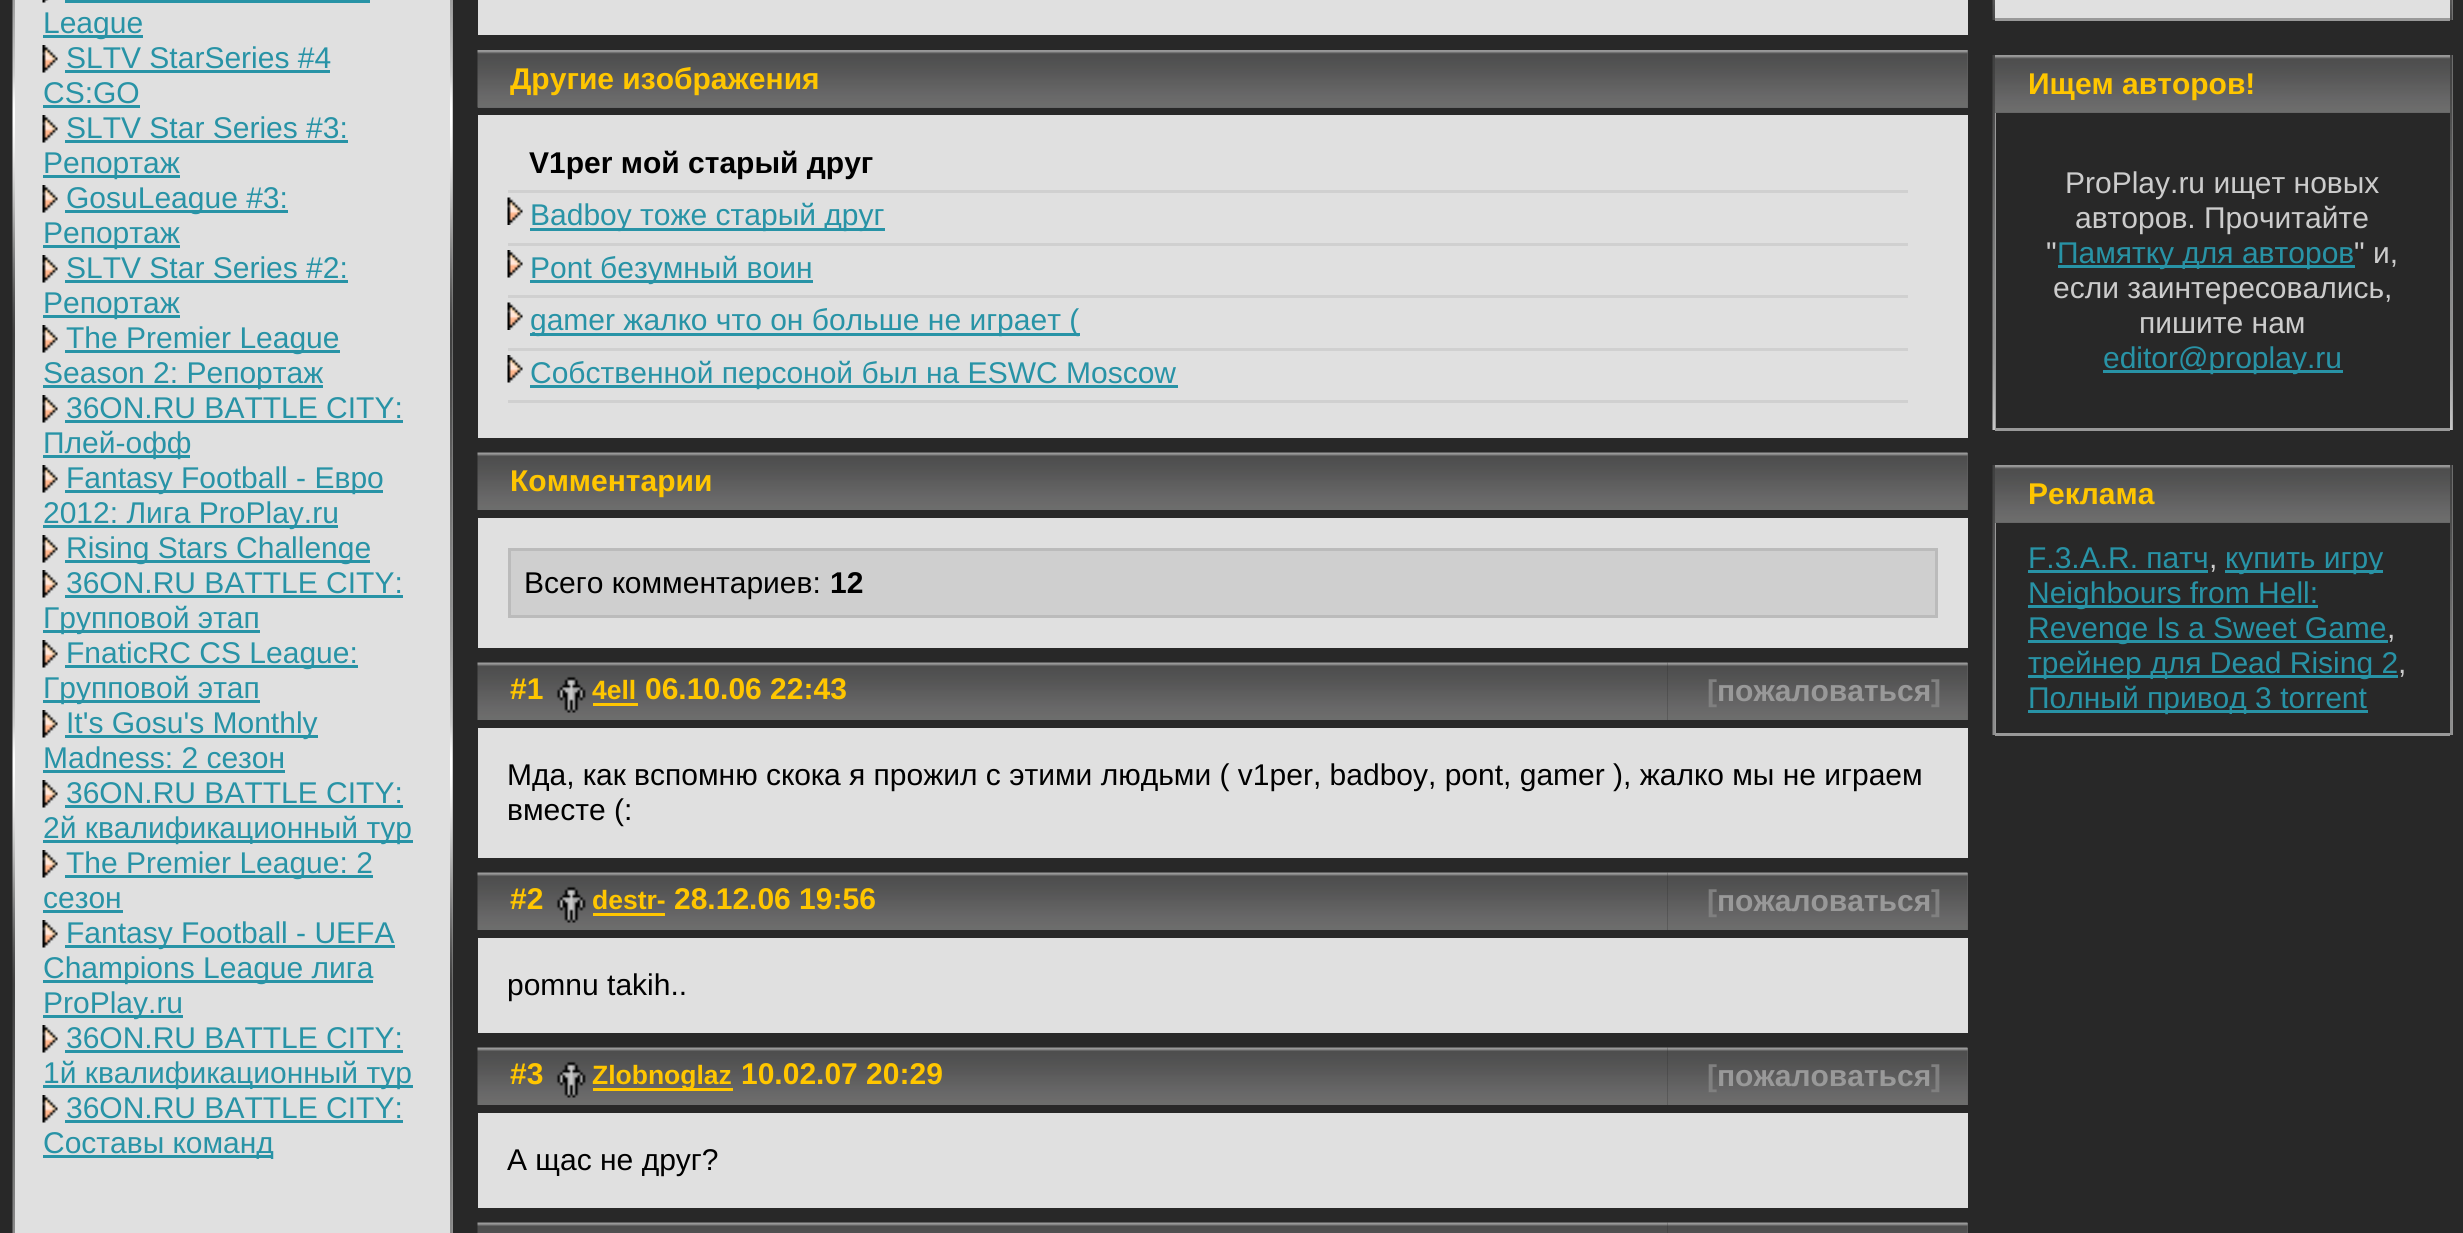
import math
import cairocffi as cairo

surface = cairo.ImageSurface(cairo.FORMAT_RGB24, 2463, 1233)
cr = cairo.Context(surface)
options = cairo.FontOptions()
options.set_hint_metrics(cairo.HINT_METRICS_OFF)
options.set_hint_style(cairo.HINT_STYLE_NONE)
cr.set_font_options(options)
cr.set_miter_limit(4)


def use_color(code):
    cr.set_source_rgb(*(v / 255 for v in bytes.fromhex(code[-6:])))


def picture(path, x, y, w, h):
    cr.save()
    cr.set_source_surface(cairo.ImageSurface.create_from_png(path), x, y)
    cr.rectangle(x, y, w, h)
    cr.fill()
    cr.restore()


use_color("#282828")
cr.paint()
picture("img1.png", 12, 0, 3, 1233)
use_color("#999999")
cr.rectangle(452, 0, 1, 1233)
cr.fill()
picture("img2.png", 450, 0, 3, 1233)
use_color("#e0e0e0")
cr.rectangle(15, 0, 435, 1233)
cr.fill()
picture("img3.png", 42, 0, 7, 3)
use_color("#2893a6")
cr.rectangle(43, 35, 100, 3)
cr.fill()
cr.select_font_face("Liberation Sans")
cr.set_font_size(30)
cr.move_to(43, 33)
cr.show_text("League")
cr.rectangle(65, 0, 305, 3)
cr.fill()
picture("img4.png", 42, 45, 16, 28)
cr.move_to(66, 68)
cr.show_text("SLTV StarSeries #4")
cr.rectangle(65, 70, 265, 3)
cr.fill()
cr.move_to(43, 103)
cr.show_text("CS:GO")
cr.rectangle(43, 105, 97, 3)
cr.fill()
picture("img5.png", 42, 115, 16, 28)
cr.move_to(66, 138)
cr.show_text("SLTV Star Series #3:")
cr.rectangle(65, 140, 283, 3)
cr.fill()
cr.rectangle(43, 175, 137, 3)
cr.fill()
cr.move_to(43, 173)
cr.show_text("Репортаж")
picture("img5.png", 42, 185, 16, 28)
cr.rectangle(65, 210, 223, 3)
cr.fill()
cr.move_to(66, 208)
cr.show_text("GosuLeague #3:")
cr.rectangle(43, 245, 137, 3)
cr.fill()
cr.move_to(43, 243)
cr.show_text("Репортаж")
picture("img5.png", 42, 255, 16, 28)
cr.move_to(66, 278)
cr.show_text("SLTV Star Series #2:")
cr.rectangle(65, 280, 283, 3)
cr.fill()
cr.rectangle(43, 315, 137, 3)
cr.fill()
cr.move_to(43, 313)
cr.show_text("Репортаж")
picture("img5.png", 42, 325, 16, 28)
cr.rectangle(65, 350, 275, 3)
cr.fill()
cr.move_to(66, 348)
cr.show_text("The Premier League")
cr.rectangle(43, 385, 280, 3)
cr.fill()
cr.move_to(43, 383)
cr.show_text("Season 2: Репортаж")
picture("img5.png", 42, 395, 16, 28)
cr.move_to(66, 418)
cr.show_text("36ON.RU BATTLE CITY:")
cr.rectangle(65, 420, 338, 3)
cr.fill()
cr.rectangle(43, 455, 147, 3)
cr.fill()
cr.move_to(43, 453)
cr.show_text("Плей-офф")
picture("img5.png", 42, 465, 16, 28)
cr.rectangle(65, 490, 318, 3)
cr.fill()
cr.move_to(66, 488)
cr.show_text("Fantasy Football - Евро")
cr.rectangle(43, 525, 295, 3)
cr.fill()
cr.move_to(43, 523)
cr.show_text("2012: Лига ProPlay.ru")
picture("img5.png", 42, 535, 16, 28)
cr.rectangle(65, 560, 305, 3)
cr.fill()
cr.move_to(66, 558)
cr.show_text("Rising Stars Challenge")
picture("img5.png", 42, 570, 16, 28)
cr.move_to(66, 593)
cr.show_text("36ON.RU BATTLE CITY:")
cr.rectangle(65, 595, 338, 3)
cr.fill()
cr.rectangle(43, 630, 217, 3)
cr.fill()
cr.move_to(43, 628)
cr.show_text("Групповой этап")
picture("img5.png", 42, 640, 16, 28)
cr.rectangle(65, 665, 293, 3)
cr.fill()
cr.move_to(66, 663)
cr.show_text("FnaticRC CS League:")
cr.rectangle(43, 700, 217, 3)
cr.fill()
cr.move_to(43, 698)
cr.show_text("Групповой этап")
picture("img5.png", 42, 710, 16, 28)
cr.rectangle(65, 735, 253, 3)
cr.fill()
cr.move_to(66, 733)
cr.show_text("It's Gosu's Monthly")
cr.move_to(43, 768)
cr.show_text("Madness: 2 сезон")
cr.rectangle(43, 770, 242, 3)
cr.fill()
picture("img5.png", 42, 780, 16, 28)
cr.move_to(66, 803)
cr.show_text("36ON.RU BATTLE CITY:")
cr.rectangle(65, 805, 338, 3)
cr.fill()
cr.rectangle(43, 840, 370, 3)
cr.fill()
cr.move_to(43, 838)
cr.show_text("2й квалификационный тур")
picture("img5.png", 42, 850, 16, 28)
cr.rectangle(65, 875, 308, 3)
cr.fill()
cr.move_to(66, 873)
cr.show_text("The Premier League: 2")
cr.move_to(43, 908)
cr.show_text("cезон")
cr.rectangle(43, 910, 80, 3)
cr.fill()
picture("img5.png", 42, 920, 16, 28)
cr.rectangle(65, 945, 330, 3)
cr.fill()
cr.move_to(66, 943)
cr.show_text("Fantasy Football - UEFA")
cr.rectangle(43, 980, 330, 3)
cr.fill()
cr.move_to(43, 978)
cr.show_text("Champions League лига")
cr.rectangle(43, 1015, 140, 3)
cr.fill()
cr.move_to(43, 1013)
cr.show_text("ProPlay.ru")
picture("img5.png", 42, 1025, 16, 28)
cr.move_to(66, 1048)
cr.show_text("36ON.RU BATTLE CITY:")
cr.rectangle(65, 1050, 338, 3)
cr.fill()
cr.rectangle(43, 1085, 370, 3)
cr.fill()
cr.move_to(43, 1083)
cr.show_text("1й квалификационный тур")
picture("img5.png", 42, 1095, 16, 28)
cr.move_to(66, 1118)
cr.show_text("36ON.RU BATTLE CITY:")
cr.rectangle(65, 1120, 338, 3)
cr.fill()
cr.rectangle(43, 1155, 230, 3)
cr.fill()
cr.move_to(43, 1153)
cr.show_text("Составы команд")
use_color("#e0e0e0")
cr.rectangle(478, 0, 1490, 35)
cr.fill()
use_color("#676767")
cr.rectangle(478, 50, 1490, 58)
cr.fill()
picture("img6.png", 477, 50, 1491, 58)
cr.select_font_face("Liberation Sans", cairo.FONT_SLANT_NORMAL, cairo.FONT_WEIGHT_BOLD)
use_color("#ffc600")
cr.move_to(510, 89)
cr.show_text("Другие изображения")
use_color("#e0e0e0")
cr.rectangle(478, 115, 1490, 323)
cr.fill()
use_color("#d0d0d0")
cr.rectangle(508, 190, 1400, 3)
cr.fill()
use_color("#000000")
cr.move_to(529, 173)
cr.show_text("V1per мой старый друг")
use_color("#d0d0d0")
cr.rectangle(508, 243, 1400, 3)
cr.fill()
picture("img7.png", 507, 197, 16, 28)
use_color("#2893a6")
cr.rectangle(530, 228, 355, 3)
cr.fill()
cr.select_font_face("Liberation Sans")
cr.move_to(530, 225)
cr.show_text("Badboy тоже старый друг")
use_color("#d0d0d0")
cr.rectangle(508, 295, 1400, 3)
cr.fill()
picture("img8.png", 507, 250, 16, 28)
use_color("#2893a6")
cr.rectangle(530, 280, 283, 3)
cr.fill()
cr.move_to(530, 278)
cr.show_text("Pont безумный воин")
use_color("#d0d0d0")
cr.rectangle(508, 348, 1400, 3)
cr.fill()
picture("img7.png", 507, 302, 16, 28)
use_color("#2893a6")
cr.rectangle(530, 333, 550, 3)
cr.fill()
cr.move_to(530, 330)
cr.show_text("gamer жалко что он больше не играет (")
use_color("#d0d0d0")
cr.rectangle(508, 400, 1400, 3)
cr.fill()
picture("img9.png", 507, 355, 16, 28)
use_color("#2893a6")
cr.rectangle(530, 385, 648, 3)
cr.fill()
cr.move_to(530, 383)
cr.show_text("Собственной персоной был на ESWC Moscow")
use_color("#676767")
cr.rectangle(1967, 453, 1, 57)
cr.fill()
picture("img10.png", 477, 452, 1491, 58)
cr.select_font_face("Liberation Sans", cairo.FONT_SLANT_NORMAL, cairo.FONT_WEIGHT_BOLD)
use_color("#ffc600")
cr.move_to(510, 491)
cr.show_text("Комментарии")
use_color("#e0e0e0")
cr.rectangle(478, 518, 1490, 130)
cr.fill()
use_color("#cfcfcf")
cr.rectangle(509.5, 549.5, 1427, 67)
cr.fill_preserve()
use_color("#bbbbbb")
cr.set_line_width(3)
cr.stroke()
cr.select_font_face("Liberation Sans")
use_color("#000000")
cr.move_to(524, 593)
cr.show_text("Всего комментариев:")
cr.select_font_face("Liberation Sans", cairo.FONT_SLANT_NORMAL, cairo.FONT_WEIGHT_BOLD)
cr.move_to(830, 593)
cr.show_text("12")
picture("img11.png", 477, 662, 1191, 58)
use_color("#ffc600")
cr.move_to(510, 699)
cr.show_text("#1")
picture("img12.png", 556, 676, 30, 37)
cr.set_font_size(26.5)
cr.move_to(592, 699)
cr.show_text("4ell")
cr.rectangle(593, 703, 45, 3)
cr.fill()
cr.set_font_size(30)
cr.move_to(645, 699)
cr.show_text("06.10.06 22:43")
use_color("#676767")
cr.rectangle(1967, 663, 1, 57)
cr.fill()
picture("img13.png", 1667, 662, 301, 58)
use_color("#808080")
cr.move_to(1707, 701)
cr.show_text("[")
use_color("#999999")
cr.move_to(1717, 701)
cr.show_text("пожаловаться")
use_color("#808080")
cr.move_to(1931, 701)
cr.show_text("]")
use_color("#e0e0e0")
cr.rectangle(478, 728, 1490, 130)
cr.fill()
cr.select_font_face("Liberation Sans")
use_color("#000000")
cr.move_to(507, 785)
cr.show_text("Мда, как вспомню скока я прожил с этими людьми ( v1per, badboy, pont, gamer ), жалко мы не играем")
cr.move_to(507, 820)
cr.show_text("вместе (:")
picture("img11.png", 477, 872, 1191, 58)
cr.select_font_face("Liberation Sans", cairo.FONT_SLANT_NORMAL, cairo.FONT_WEIGHT_BOLD)
use_color("#ffc600")
cr.move_to(510, 909)
cr.show_text("#2")
picture("img12.png", 556, 886, 30, 37)
cr.set_font_size(26.5)
cr.move_to(592, 909)
cr.show_text("destr-")
cr.rectangle(593, 913, 72, 3)
cr.fill()
cr.set_font_size(30)
cr.move_to(674, 909)
cr.show_text("28.12.06 19:56")
use_color("#676767")
cr.rectangle(1967, 873, 1, 57)
cr.fill()
picture("img13.png", 1667, 872, 301, 58)
use_color("#808080")
cr.move_to(1707, 911)
cr.show_text("[")
use_color("#999999")
cr.move_to(1717, 911)
cr.show_text("пожаловаться")
use_color("#808080")
cr.move_to(1931, 911)
cr.show_text("]")
use_color("#e0e0e0")
cr.rectangle(478, 938, 1490, 95)
cr.fill()
cr.select_font_face("Liberation Sans")
use_color("#000000")
cr.move_to(507, 995)
cr.show_text("pomnu takih..")
picture("img11.png", 477, 1047, 1191, 58)
cr.select_font_face("Liberation Sans", cairo.FONT_SLANT_NORMAL, cairo.FONT_WEIGHT_BOLD)
use_color("#ffc600")
cr.move_to(510, 1084)
cr.show_text("#3")
picture("img12.png", 556, 1061, 30, 37)
cr.rectangle(593, 1088, 140, 3)
cr.fill()
cr.set_font_size(26.5)
cr.move_to(592, 1084)
cr.show_text("Zlobnoglaz")
cr.set_font_size(30)
cr.move_to(741, 1084)
cr.show_text("10.02.07 20:29")
use_color("#676767")
cr.rectangle(1967, 1048, 1, 57)
cr.fill()
picture("img13.png", 1667, 1047, 301, 58)
use_color("#808080")
cr.move_to(1707, 1086)
cr.show_text("[")
use_color("#999999")
cr.move_to(1717, 1086)
cr.show_text("пожаловаться")
use_color("#808080")
cr.move_to(1931, 1086)
cr.show_text("]")
use_color("#e0e0e0")
cr.rectangle(478, 1113, 1490, 95)
cr.fill()
cr.select_font_face("Liberation Sans")
use_color("#000000")
cr.move_to(507, 1170)
cr.show_text("А щас не друг?")
picture("img14.png", 477, 1222, 1191, 11)
use_color("#676767")
cr.rectangle(1967, 1223, 1, 10)
cr.fill()
picture("img15.png", 1667, 1222, 301, 11)
picture("img16.png", 1992, 0, 3, 20)
use_color("#999999")
cr.rectangle(2452, 0, 1, 20)
cr.fill()
picture("img17.png", 2450, 0, 3, 20)
use_color("#e0e0e0")
cr.rectangle(1995, 0, 455, 18)
cr.fill()
use_color("#999999")
cr.rectangle(1995, 18, 455, 3)
cr.fill()
cr.rectangle(1995, 113, 1, 317)
cr.fill()
picture("img18.png", 1992, 55, 3, 375)
use_color("#676767")
cr.rectangle(1995, 112, 455, 1)
cr.fill()
picture("img19.png", 1995, 55, 455, 57)
cr.select_font_face("Liberation Sans", cairo.FONT_SLANT_NORMAL, cairo.FONT_WEIGHT_BOLD)
use_color("#ffc600")
cr.move_to(2028, 94)
cr.show_text("Ищем авторов!")
use_color("#999999")
cr.rectangle(2452, 55, 1, 375)
cr.fill()
picture("img20.png", 2450, 55, 3, 375)
cr.select_font_face("Liberation Sans")
use_color("#cccccc")
cr.move_to(2065, 193)
cr.show_text("ProPlay.ru ищет новых")
cr.move_to(2075, 228)
cr.show_text("авторов. Прочитайте")
cr.move_to(2046, 263)
cr.show_text("\"")
use_color("#2893a6")
cr.rectangle(2058, 265, 297, 3)
cr.fill()
cr.move_to(2057, 263)
cr.show_text("Памятку для авторов")
use_color("#cccccc")
cr.move_to(2354, 263)
cr.show_text("\" и,")
cr.move_to(2053, 298)
cr.show_text("если заинтересовались,")
cr.move_to(2139, 333)
cr.show_text("пишите нам")
use_color("#2893a6")
cr.rectangle(2103, 370, 240, 3)
cr.fill()
cr.move_to(2103, 368)
cr.show_text("editor@proplay.ru")
use_color("#999999")
cr.rectangle(1995, 428, 455, 3)
cr.fill()
cr.rectangle(1995, 523, 1, 212)
cr.fill()
picture("img21.png", 1992, 465, 3, 270)
use_color("#676767")
cr.rectangle(1995, 522, 455, 1)
cr.fill()
picture("img22.png", 1995, 465, 455, 57)
cr.select_font_face("Liberation Sans", cairo.FONT_SLANT_NORMAL, cairo.FONT_WEIGHT_BOLD)
use_color("#ffc600")
cr.move_to(2028, 504)
cr.show_text("Реклама")
use_color("#999999")
cr.rectangle(2452, 465, 1, 270)
cr.fill()
picture("img23.png", 2450, 465, 3, 270)
cr.select_font_face("Liberation Sans")
use_color("#2893a6")
cr.move_to(2028, 568)
cr.show_text("F.3.A.R. патч")
cr.rectangle(2028, 570, 180, 3)
cr.fill()
use_color("#cccccc")
cr.move_to(2209, 568)
cr.show_text(",")
use_color("#2893a6")
cr.rectangle(2225, 570, 158, 3)
cr.fill()
cr.move_to(2225, 568)
cr.show_text("купить игру")
cr.rectangle(2028, 605, 290, 3)
cr.fill()
cr.move_to(2028, 603)
cr.show_text("Neighbours from Hell:")
cr.rectangle(2028, 640, 360, 3)
cr.fill()
cr.move_to(2028, 638)
cr.show_text("Revenge Is a Sweet Game")
use_color("#cccccc")
cr.move_to(2387, 638)
cr.show_text(",")
use_color("#2893a6")
cr.rectangle(2028, 675, 370, 3)
cr.fill()
cr.move_to(2028, 673)
cr.show_text("трейнер для Dead Rising 2")
use_color("#cccccc")
cr.move_to(2398, 673)
cr.show_text(",")
use_color("#2893a6")
cr.rectangle(2028, 710, 340, 3)
cr.fill()
cr.move_to(2028, 708)
cr.show_text("Полный привод 3 torrent")
use_color("#999999")
cr.rectangle(1995, 733, 455, 3)
cr.fill()
surface.write_to_png("result.png")
